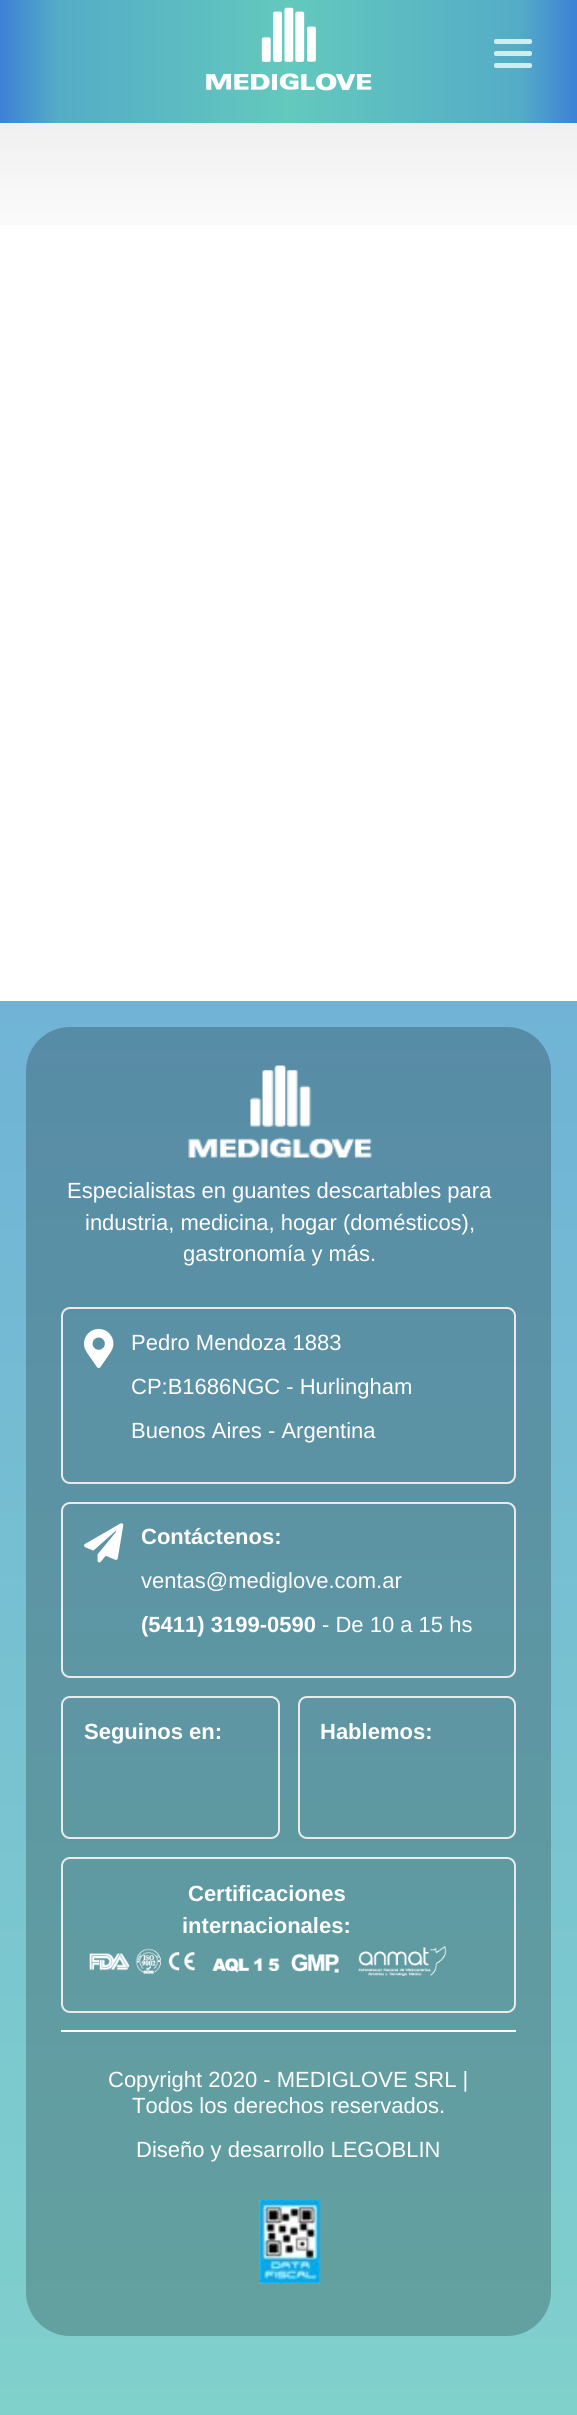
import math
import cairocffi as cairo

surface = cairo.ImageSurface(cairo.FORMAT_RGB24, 577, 2415)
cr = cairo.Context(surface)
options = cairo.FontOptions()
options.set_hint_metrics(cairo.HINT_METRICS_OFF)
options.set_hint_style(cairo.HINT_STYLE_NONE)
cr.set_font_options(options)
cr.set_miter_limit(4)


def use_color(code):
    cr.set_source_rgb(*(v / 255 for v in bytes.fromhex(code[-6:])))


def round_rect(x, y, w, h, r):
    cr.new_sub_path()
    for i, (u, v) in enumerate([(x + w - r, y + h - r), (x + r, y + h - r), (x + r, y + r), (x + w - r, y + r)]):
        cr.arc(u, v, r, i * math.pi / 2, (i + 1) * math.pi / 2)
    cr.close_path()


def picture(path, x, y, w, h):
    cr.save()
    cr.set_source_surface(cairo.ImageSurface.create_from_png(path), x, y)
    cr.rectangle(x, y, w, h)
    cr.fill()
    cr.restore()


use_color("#ffffff")
cr.paint()
gradient = cairo.LinearGradient(-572, 61, 1.8, 61)
gradient.add_color_stop_rgba(0, 0.243, 0.51, 0.839, 1)
gradient.add_color_stop_rgba(0.1, 0.329, 0.675, 0.78, 1)
gradient.add_color_stop_rgba(0.5, 0.388, 0.788, 0.741, 1)
gradient.add_color_stop_rgba(0.9, 0.329, 0.675, 0.78, 1)
gradient.add_color_stop_rgba(1, 0.243, 0.51, 0.839, 1)
cr.set_source(gradient)
cr.rectangle(0, 0, 2, 123)
cr.fill()
gradient = cairo.LinearGradient(1.8, 61, 576, 61)
gradient.add_color_stop_rgba(0, 0.243, 0.51, 0.839, 1)
gradient.add_color_stop_rgba(0.1, 0.329, 0.675, 0.78, 1)
gradient.add_color_stop_rgba(0.5, 0.388, 0.788, 0.741, 1)
gradient.add_color_stop_rgba(0.9, 0.329, 0.675, 0.78, 1)
gradient.add_color_stop_rgba(1, 0.243, 0.51, 0.839, 1)
cr.set_source(gradient)
cr.rectangle(2, 0, 574, 123)
cr.fill()
gradient = cairo.LinearGradient(576, 61, 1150, 61)
gradient.add_color_stop_rgba(0, 0.243, 0.51, 0.839, 1)
gradient.add_color_stop_rgba(0.1, 0.329, 0.675, 0.78, 1)
gradient.add_color_stop_rgba(0.5, 0.388, 0.788, 0.741, 1)
gradient.add_color_stop_rgba(0.9, 0.329, 0.675, 0.78, 1)
gradient.add_color_stop_rgba(1, 0.243, 0.51, 0.839, 1)
cr.set_source(gradient)
cr.rectangle(576, 0, 1, 123)
cr.fill()
picture("img1.png", 206, 7, 166, 84)
use_color("#ceeeed")
round_rect(494, 39, 38, 5, 2)
cr.fill()
round_rect(494, 51, 38, 5, 2)
cr.fill()
round_rect(494, 63, 38, 5, 2)
cr.fill()
picture("img2.png", 0, 123, 577, 102)
gradient = cairo.LinearGradient(289, 1001, 289, 2415)
gradient.add_color_stop_rgba(0, 0.439, 0.702, 0.839, 1)
gradient.add_color_stop_rgba(1, 0.502, 0.816, 0.8, 1)
cr.set_source(gradient)
cr.rectangle(0, 1001, 577, 1414)
cr.fill()
cr.set_source_rgba(0, 0, 0, 0.22)
round_rect(26, 1027, 525, 1309, 44)
cr.fill()
picture("img3.png", 188, 1065, 184, 95)
cr.select_font_face("Liberation Sans")
cr.set_font_size(22)
use_color("#ffffff")
cr.move_to(67, 1198)
cr.show_text("Especialistas en guantes descartables para")
cr.move_to(85, 1230)
cr.show_text("industria, medicina, hogar (domésticos),")
cr.move_to(183, 1261)
cr.show_text("gastronomía y más.")
round_rect(62, 1308, 453, 175, 8)
use_color("#eaeaea")
cr.stroke()
picture("img4.png", 84, 1328, 30, 41)
use_color("#ffffff")
cr.move_to(131, 1350)
cr.show_text("Pedro Mendoza 1883")
cr.move_to(131, 1394)
cr.show_text("CP:B1686NGC - Hurlingham")
cr.move_to(131, 1438)
cr.show_text("Buenos Aires - Argentina")
round_rect(62, 1503, 453, 174, 8)
use_color("#eaeaea")
cr.stroke()
picture("img5.png", 84, 1523, 40, 40)
cr.select_font_face("Liberation Sans", cairo.FONT_SLANT_NORMAL, cairo.FONT_WEIGHT_BOLD)
use_color("#ffffff")
cr.move_to(141, 1544)
cr.show_text("Contáctenos:")
cr.select_font_face("Liberation Sans")
cr.move_to(141, 1588)
cr.show_text("ventas@mediglove.com.ar")
cr.select_font_face("Liberation Sans", cairo.FONT_SLANT_NORMAL, cairo.FONT_WEIGHT_BOLD)
cr.move_to(141, 1632)
cr.show_text("(5411) 3199-0590")
cr.select_font_face("Liberation Sans")
cr.move_to(322, 1632)
cr.show_text("- De 10 a 15 hs")
round_rect(62, 1697, 217, 141, 8)
use_color("#eaeaea")
cr.stroke()
cr.select_font_face("Liberation Sans", cairo.FONT_SLANT_NORMAL, cairo.FONT_WEIGHT_BOLD)
use_color("#ffffff")
cr.move_to(84, 1739)
cr.show_text("Seguinos en:")
round_rect(299, 1697, 216, 141, 8)
use_color("#eaeaea")
cr.stroke()
use_color("#ffffff")
cr.move_to(320, 1739)
cr.show_text("Hablemos:")
round_rect(62, 1858, 453, 154, 8)
use_color("#eaeaea")
cr.stroke()
use_color("#ffffff")
cr.move_to(188, 1901)
cr.show_text("Certificaciones")
cr.move_to(182, 1933)
cr.show_text("internacionales:")
picture("img6.png", 89, 1946, 358, 30)
cr.rectangle(61, 2030, 455, 2)
cr.fill()
cr.select_font_face("Liberation Sans")
cr.move_to(108, 2087)
cr.show_text("Copyright 2020 - MEDIGLOVE SRL |")
cr.move_to(132, 2113)
cr.show_text("Todos los derechos reservados.")
cr.move_to(136, 2157)
cr.show_text("Diseño y desarrollo LEGOBLIN")
picture("img7.png", 259, 2200, 62, 84)
surface.write_to_png("result.png")
